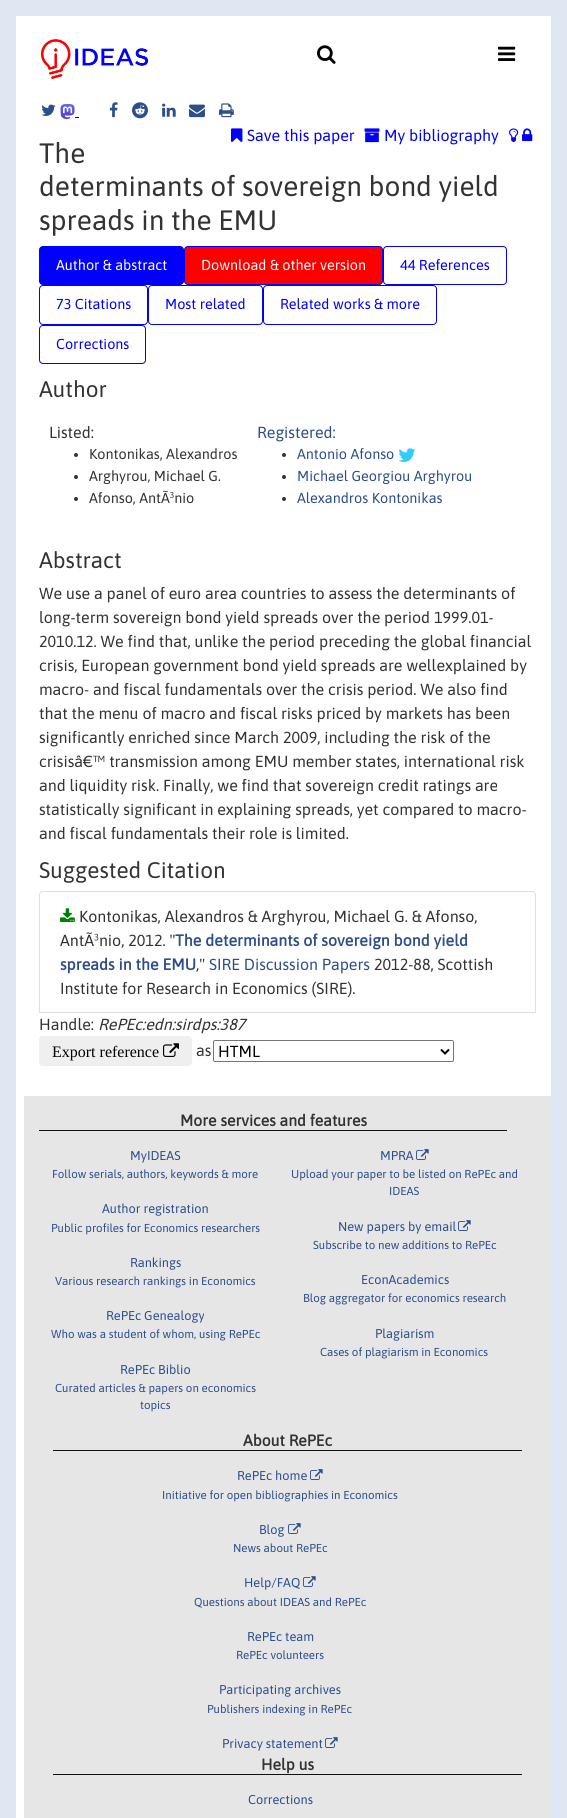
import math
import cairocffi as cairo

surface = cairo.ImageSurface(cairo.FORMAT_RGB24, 567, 1818)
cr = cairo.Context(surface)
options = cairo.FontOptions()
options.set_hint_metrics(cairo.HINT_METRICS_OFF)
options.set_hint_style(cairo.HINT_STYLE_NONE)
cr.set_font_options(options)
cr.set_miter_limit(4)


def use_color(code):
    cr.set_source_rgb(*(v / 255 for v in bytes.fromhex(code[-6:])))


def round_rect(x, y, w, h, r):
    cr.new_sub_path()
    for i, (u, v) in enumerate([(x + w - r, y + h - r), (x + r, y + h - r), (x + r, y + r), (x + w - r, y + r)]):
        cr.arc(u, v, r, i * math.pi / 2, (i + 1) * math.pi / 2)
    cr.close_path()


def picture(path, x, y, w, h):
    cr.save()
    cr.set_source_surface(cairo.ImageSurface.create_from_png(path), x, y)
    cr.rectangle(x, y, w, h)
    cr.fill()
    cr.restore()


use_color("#dfe7f2")
cr.paint()
use_color("#ffffff")
cr.rectangle(16, 16, 535, 1802)
cr.fill()
picture("img1.png", 40, 39, 109, 40)
picture("img2.png", 317, 45, 19, 19)
picture("img3.png", 498, 46, 18, 15)
picture("img4.png", 41, 104, 15, 12)
picture("img5.png", 60, 104, 15, 15)
use_color("#0000ff")
cr.rectangle(75, 117, 4, 1)
cr.fill()
picture("img6.png", 109, 102, 9, 16)
picture("img7.png", 132, 102, 16, 17)
picture("img8.png", 162, 103, 14, 14)
picture("img9.png", 189, 104, 16, 14)
picture("img10.png", 219, 103, 15, 15)
picture("img11.png", 231, 128, 12, 14)
cr.select_font_face("Asap")
cr.set_font_size(16)
use_color("#0000fc")
cr.move_to(247, 141)
cr.show_text("Save this paper")
picture("img12.png", 364, 128, 16, 15)
cr.move_to(384, 141)
cr.show_text("My bibliography")
picture("img13.png", 509, 128, 10, 15)
picture("img14.png", 522, 128, 11, 13)
cr.set_font_size(28)
use_color("#333333")
cr.move_to(39, 163)
cr.show_text("The")
cr.move_to(39, 196)
cr.show_text("determinants of sovereign bond yield")
cr.move_to(39, 230)
cr.show_text("spreads in the EMU")
use_color("#0000fc")
round_rect(39.5, 246.5, 144, 38, 3.5)
cr.fill_preserve()
cr.set_line_width(1)
cr.stroke()
cr.set_font_size(14.4)
use_color("#ffffff")
cr.move_to(56, 270)
cr.show_text("Author & abstract")
use_color("#fc0000")
round_rect(184.5, 246.5, 198, 38, 3.5)
cr.fill_preserve()
use_color("#0000fc")
cr.stroke()
use_color("#ffffff")
cr.move_to(201, 270)
cr.show_text("Download & other version")
round_rect(383.5, 246.5, 123, 38, 3.5)
use_color("#0000fc")
cr.stroke()
cr.move_to(400, 270)
cr.show_text("44 References")
round_rect(39.5, 285.5, 108, 39, 3.5)
cr.stroke()
cr.move_to(56, 309)
cr.show_text("73 Citations")
round_rect(148.5, 285.5, 114, 39, 3.5)
cr.stroke()
cr.move_to(165, 309)
cr.show_text("Most related")
round_rect(263.5, 285.5, 173, 39, 3.5)
cr.stroke()
cr.move_to(280, 309)
cr.show_text("Related works & more")
round_rect(39.5, 325.5, 106, 38, 3.5)
cr.stroke()
cr.move_to(56, 349)
cr.show_text("Corrections")
cr.set_font_size(22.5)
use_color("#333333")
cr.move_to(39, 397)
cr.show_text("Author")
cr.set_font_size(16)
cr.move_to(49, 438)
cr.show_text("Listed:")
cr.new_path()
cr.arc(76, 455, 2, 0, 2 * math.pi)
cr.fill()
cr.set_font_size(14.4)
cr.move_to(89, 459)
cr.show_text("Kontonikas, Alexandros")
cr.new_path()
cr.arc(76, 477, 2, 0, 2 * math.pi)
cr.fill()
cr.move_to(89, 481)
cr.show_text("Arghyrou, Michael G.")
cr.new_path()
cr.arc(76, 499, 2, 0, 2 * math.pi)
cr.fill()
cr.move_to(89, 503)
cr.show_text("Afonso, AntÃ³nio")
cr.set_font_size(16)
use_color("#2d4e8b")
cr.move_to(257, 438)
cr.show_text("Registered:")
use_color("#333333")
cr.new_path()
cr.arc(284, 455, 2, 0, 2 * math.pi)
cr.fill()
cr.set_font_size(14.4)
use_color("#2d4e8b")
cr.move_to(297, 459)
cr.show_text("Antonio Afonso")
picture("img15.png", 398, 448, 18, 14)
use_color("#333333")
cr.arc(284, 477, 2, 0, 2 * math.pi)
cr.fill()
use_color("#2d4e8b")
cr.move_to(297, 481)
cr.show_text("Michael Georgiou Arghyrou")
use_color("#333333")
cr.new_path()
cr.arc(284, 499, 2, 0, 2 * math.pi)
cr.fill()
use_color("#2d4e8b")
cr.move_to(297, 503)
cr.show_text("Alexandros Kontonikas")
cr.set_font_size(22.5)
use_color("#333333")
cr.move_to(39, 568)
cr.show_text("Abstract")
cr.set_font_size(16)
cr.move_to(39, 599)
cr.show_text("We use a panel of euro area countries to assess the determinants of")
cr.move_to(39, 623)
cr.show_text("long-term sovereign bond yield spreads over the period 1999.01-")
cr.move_to(39, 647)
cr.show_text("2010.12. We find that, unlike the period preceding the global financial")
cr.move_to(39, 671)
cr.show_text("crisis, European government bond yield spreads are wellexplained by")
cr.move_to(39, 695)
cr.show_text("macro- and fiscal fundamentals over the crisis period. We also find")
cr.move_to(39, 719)
cr.show_text("that the menu of macro and fiscal risks priced by markets has been")
cr.move_to(39, 743)
cr.show_text("significantly enriched since March 2009, including the risk of the")
cr.move_to(39, 767)
cr.show_text("crisisâ€™ transmission among EMU member states, international risk")
cr.move_to(39, 791)
cr.show_text("and liquidity risk. Finally, we find that sovereign credit ratings are")
cr.move_to(39, 815)
cr.show_text("statistically significant in explaining spreads, yet compared to macro-")
cr.move_to(39, 839)
cr.show_text("and fiscal fundamentals their role is limited.")
cr.set_font_size(22.5)
cr.move_to(39, 878)
cr.show_text("Suggested Citation")
cr.new_path()
cr.move_to(43, 891.5)
cr.line_to(532, 891.5)
cr.curve_to(534, 891.5, 535.5, 893, 535.5, 895)
cr.line_to(535.5, 1012.5)
cr.line_to(39.5, 1012.5)
cr.line_to(39.5, 895)
cr.curve_to(39.5, 893, 41, 891.5, 43, 891.5)
cr.close_path()
use_color("#dfdfdf")
cr.stroke()
picture("img16.png", 60, 908, 15, 14)
cr.set_font_size(16)
use_color("#333333")
cr.move_to(79, 922)
cr.show_text("Kontonikas, Alexandros & Arghyrou, Michael G. & Afonso,")
cr.move_to(60, 946)
cr.show_text("AntÃ³nio, 2012. \"")
cr.select_font_face("Asap", cairo.FONT_SLANT_NORMAL, cairo.FONT_WEIGHT_BOLD)
use_color("#2d4e8b")
cr.move_to(175, 946)
cr.show_text("The determinants of sovereign bond yield")
cr.move_to(60, 970)
cr.show_text("spreads in the EMU")
cr.select_font_face("Asap")
use_color("#333333")
cr.move_to(196, 970)
cr.show_text(",\"")
use_color("#2d4e8b")
cr.move_to(209, 970)
cr.show_text("SIRE Discussion Papers")
use_color("#333333")
cr.move_to(374, 970)
cr.show_text("2012-88, Scottish")
cr.move_to(60, 994)
cr.show_text("Institute for Research in Economics (SIRE).")
cr.move_to(39, 1030)
cr.show_text("Handle:")
cr.select_font_face("Asap", cairo.FONT_SLANT_ITALIC)
cr.move_to(98, 1030)
cr.show_text("RePEc:edn:sirdps:387")
use_color("#efefef")
round_rect(39, 1036, 153, 30, 4)
cr.fill()
cr.select_font_face("Liberation Serif")
use_color("#000000")
cr.move_to(52, 1057)
cr.show_text("Export reference")
picture("img17.png", 163, 1043, 16, 14)
cr.select_font_face("Asap")
use_color("#333333")
cr.move_to(196, 1056)
cr.show_text("as")
round_rect(213.5, 1040.5, 240, 21, 1.5)
use_color("#767676")
cr.stroke()
cr.new_path()
cr.move_to(441, 1049.5)
cr.line_to(445, 1053.5)
cr.line_to(449, 1049.5)
use_color("#000000")
cr.set_line_width(2)
cr.stroke()
cr.move_to(218, 1057)
cr.show_text("HTML")
use_color("#e6e6e6")
cr.rectangle(24, 1096, 527, 722)
cr.fill()
use_color("#111111")
cr.rectangle(39, 1130, 468, 1)
cr.fill()
cr.select_font_face("Asap", cairo.FONT_SLANT_NORMAL, cairo.FONT_WEIGHT_BOLD)
cr.set_font_size(15.8)
use_color("#333333")
cr.move_to(180, 1126)
cr.show_text("More services and features")
cr.select_font_face("Asap")
cr.set_font_size(12.75)
use_color("#2d4e8b")
cr.move_to(130, 1160)
cr.show_text("MyIDEAS")
cr.set_font_size(11.5)
cr.move_to(52, 1178)
cr.show_text("Follow serials, authors, keywords & more")
cr.set_font_size(12.75)
cr.move_to(102, 1213)
cr.show_text("Author registration")
cr.set_font_size(11.5)
cr.move_to(51, 1232)
cr.show_text("Public profiles for Economics researchers")
cr.set_font_size(12.75)
cr.move_to(130, 1267)
cr.show_text("Rankings")
cr.set_font_size(11.5)
cr.move_to(55, 1285)
cr.show_text("Various research rankings in Economics")
cr.set_font_size(12.75)
cr.move_to(106, 1320)
cr.show_text("RePEc Genealogy")
cr.set_font_size(11.5)
cr.move_to(51, 1338)
cr.show_text("Who was a student of whom, using RePEc")
cr.set_font_size(12.75)
cr.move_to(120, 1374)
cr.show_text("RePEc Biblio")
cr.set_font_size(11.5)
cr.move_to(55, 1392)
cr.show_text("Curated articles & papers on economics")
cr.move_to(140, 1409)
cr.show_text("topics")
cr.set_font_size(12.75)
cr.move_to(380, 1160)
cr.show_text("MPRA")
picture("img18.png", 416, 1149, 13, 11)
cr.set_font_size(11.5)
cr.move_to(291, 1178)
cr.show_text("Upload your paper to be listed on RePEc and")
cr.move_to(389, 1195)
cr.show_text("IDEAS")
cr.set_font_size(12.75)
cr.move_to(338, 1231)
cr.show_text("New papers by email")
picture("img18.png", 458, 1220, 13, 11)
cr.set_font_size(11.5)
cr.move_to(313, 1249)
cr.show_text("Subscribe to new additions to RePEc")
cr.set_font_size(12.75)
cr.move_to(361, 1284)
cr.show_text("EconAcademics")
cr.set_font_size(11.5)
cr.move_to(303, 1302)
cr.show_text("Blog aggregator for economics research")
cr.set_font_size(12.75)
cr.move_to(375, 1338)
cr.show_text("Plagiarism")
cr.set_font_size(11.5)
cr.move_to(320, 1356)
cr.show_text("Cases of plagiarism in Economics")
use_color("#111111")
cr.rectangle(53, 1450, 469, 1)
cr.fill()
cr.select_font_face("Asap", cairo.FONT_SLANT_NORMAL, cairo.FONT_WEIGHT_BOLD)
cr.set_font_size(15.8)
use_color("#333333")
cr.move_to(243, 1446)
cr.show_text("About RePEc")
cr.select_font_face("Asap")
cr.set_font_size(12.75)
use_color("#2d4e8b")
cr.move_to(237, 1480)
cr.show_text("RePEc home")
picture("img18.png", 310, 1469, 13, 11)
cr.set_font_size(11.5)
cr.move_to(162, 1499)
cr.show_text("Initiative for open bibliographies in Economics")
cr.set_font_size(12.75)
cr.move_to(259, 1534)
cr.show_text("Blog")
picture("img18.png", 288, 1523, 13, 11)
cr.set_font_size(11.5)
cr.move_to(233, 1552)
cr.show_text("News about RePEc")
cr.set_font_size(12.75)
cr.move_to(244, 1587)
cr.show_text("Help/FAQ")
picture("img18.png", 303, 1576, 13, 11)
cr.set_font_size(11.5)
cr.move_to(194, 1606)
cr.show_text("Questions about IDEAS and RePEc")
cr.set_font_size(12.75)
cr.move_to(247, 1641)
cr.show_text("RePEc team")
cr.set_font_size(11.5)
cr.move_to(236, 1659)
cr.show_text("RePEc volunteers")
cr.set_font_size(12.75)
cr.move_to(219, 1694)
cr.show_text("Participating archives")
cr.set_font_size(11.5)
cr.move_to(207, 1713)
cr.show_text("Publishers indexing in RePEc")
cr.set_font_size(12.75)
cr.move_to(222, 1748)
cr.show_text("Privacy statement")
picture("img18.png", 325, 1737, 13, 11)
use_color("#111111")
cr.rectangle(53, 1774, 469, 1)
cr.fill()
cr.select_font_face("Asap", cairo.FONT_SLANT_NORMAL, cairo.FONT_WEIGHT_BOLD)
cr.set_font_size(15.8)
use_color("#333333")
cr.move_to(261, 1770)
cr.show_text("Help us")
cr.select_font_face("Asap")
cr.set_font_size(12.75)
use_color("#2d4e8b")
cr.move_to(248, 1804)
cr.show_text("Corrections")
surface.write_to_png("result.png")
